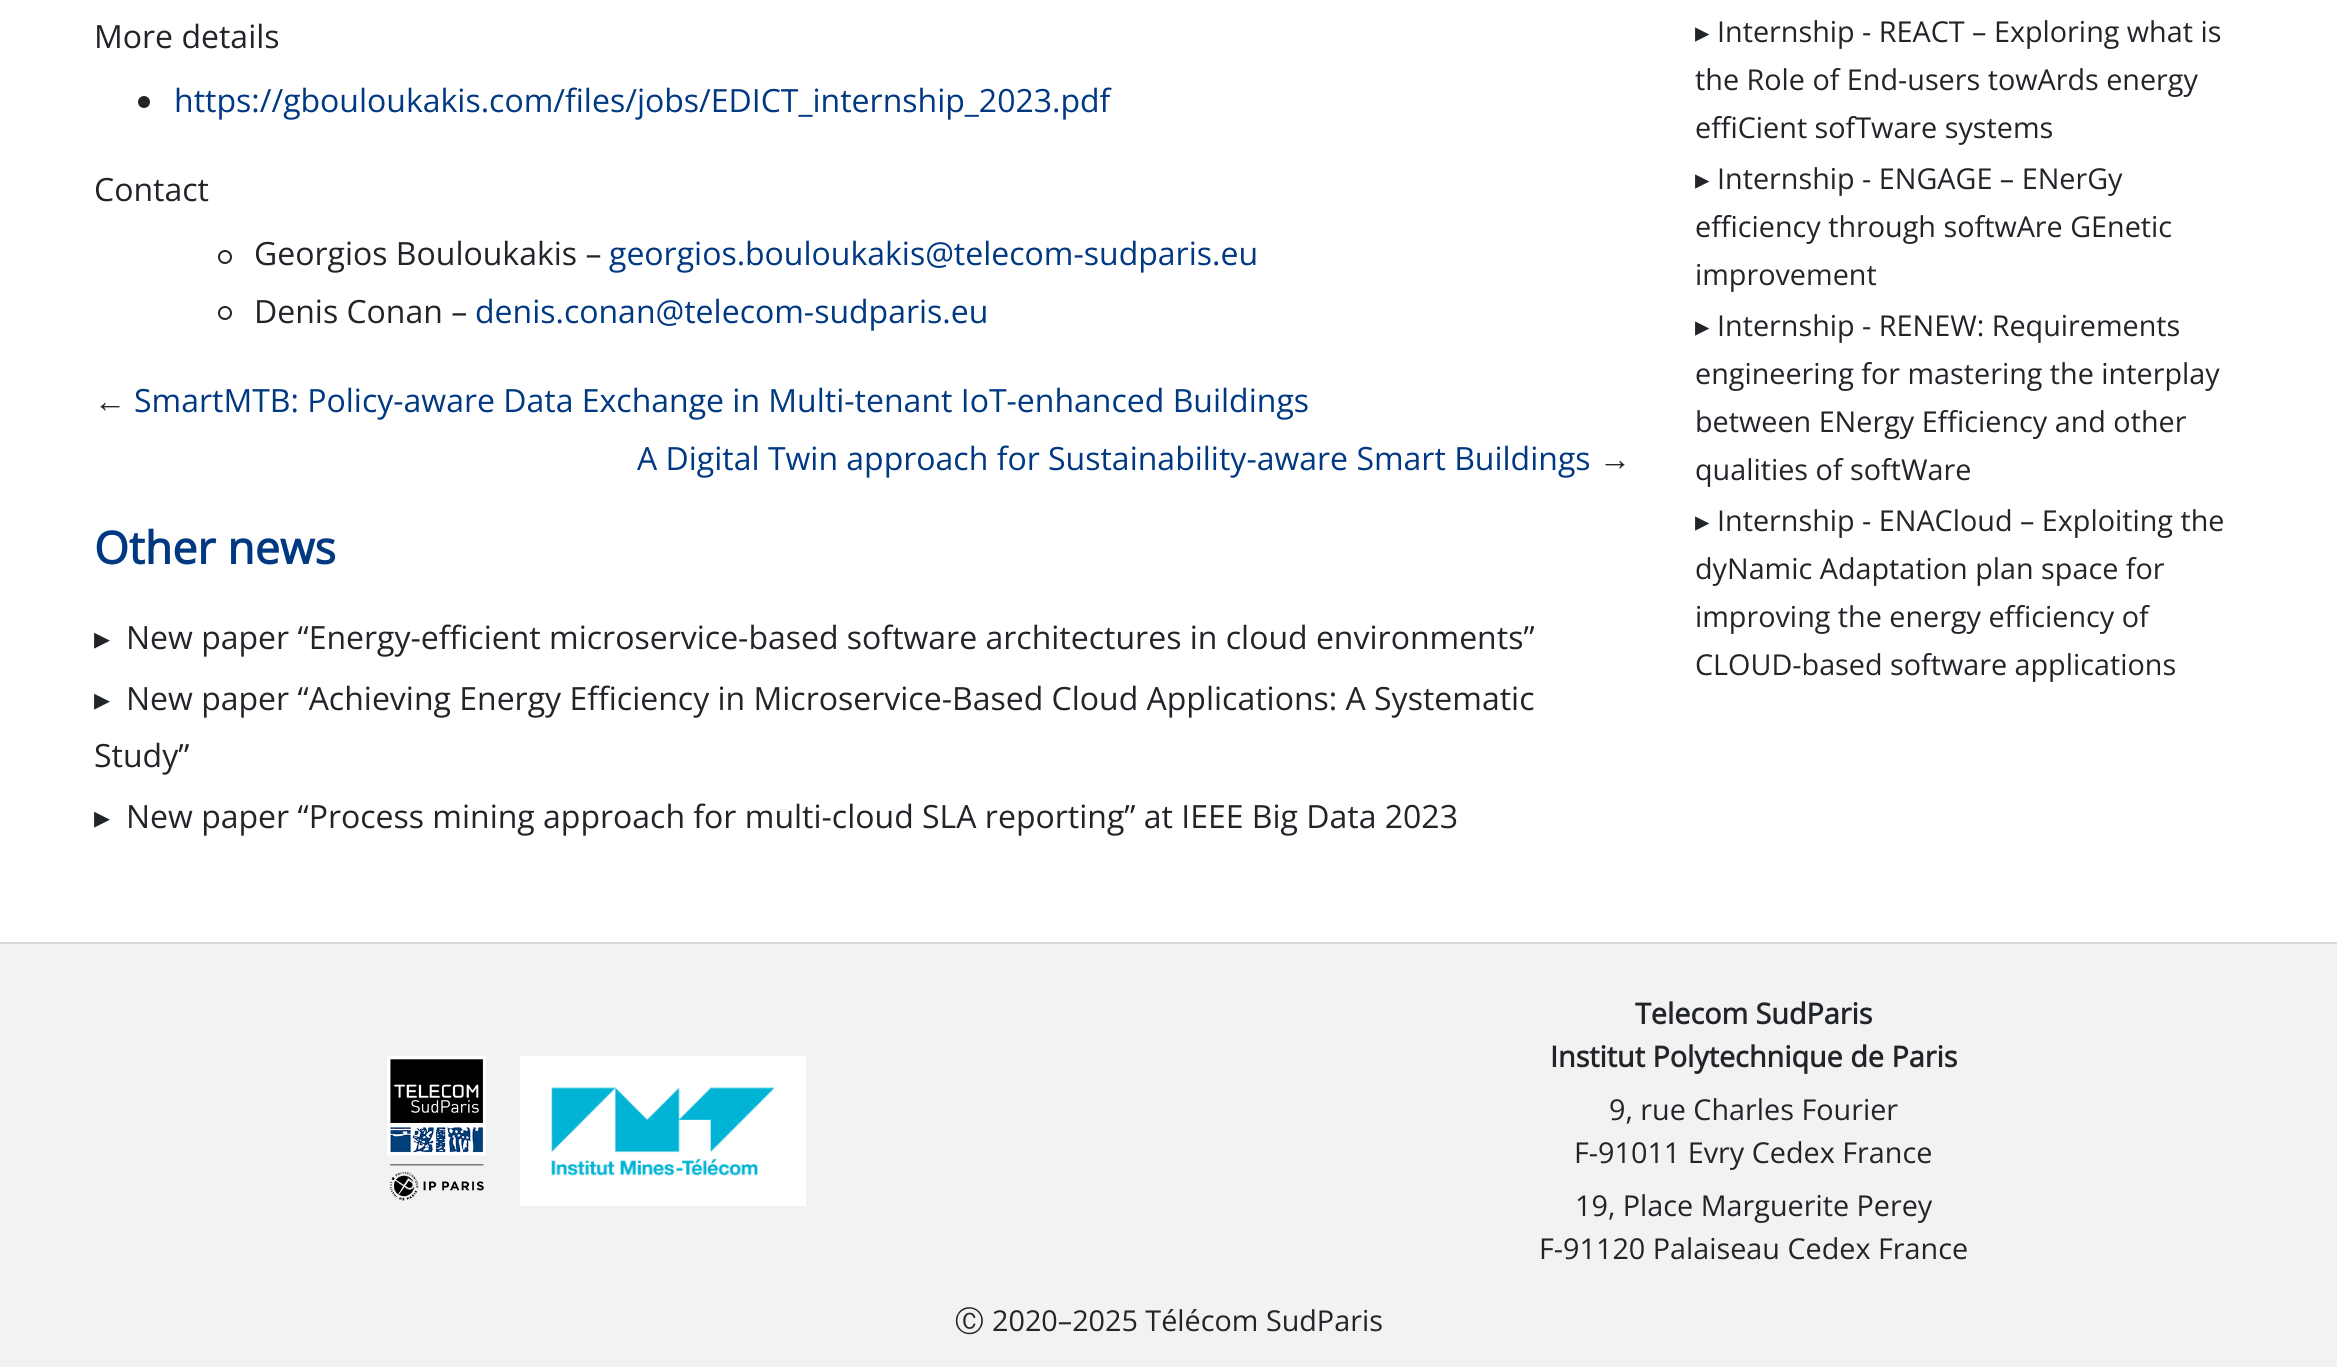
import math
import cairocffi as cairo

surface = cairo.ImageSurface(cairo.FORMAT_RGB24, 2337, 1367)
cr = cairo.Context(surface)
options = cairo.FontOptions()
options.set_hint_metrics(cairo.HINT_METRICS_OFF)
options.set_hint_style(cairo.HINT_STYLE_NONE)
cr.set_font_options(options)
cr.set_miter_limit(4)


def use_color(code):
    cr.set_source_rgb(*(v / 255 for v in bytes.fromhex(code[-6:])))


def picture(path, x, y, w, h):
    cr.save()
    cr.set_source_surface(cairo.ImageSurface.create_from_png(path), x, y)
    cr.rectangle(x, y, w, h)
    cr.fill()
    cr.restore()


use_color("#ffffff")
cr.paint()
cr.select_font_face("Open Sans")
cr.set_font_size(32)
use_color("#212529")
cr.move_to(94, 48)
cr.show_text("More details")
cr.new_path()
cr.arc(144, 102, 6, 0, 2 * math.pi)
cr.fill()
use_color("#003882")
cr.move_to(174, 112)
cr.show_text("https://gbouloukakis.com/files/jobs/EDICT_internship_2023.pdf")
use_color("#212529")
cr.move_to(94, 201)
cr.show_text("Contact")
cr.new_path()
cr.arc(225, 257, 6, 0, 2 * math.pi)
cr.stroke()
cr.move_to(254, 265)
cr.show_text("Georgios Bouloukakis –")
use_color("#003882")
cr.move_to(609, 265)
cr.show_text("georgios.bouloukakis@telecom-sudparis.eu")
cr.new_path()
cr.arc(225, 313, 6, 0, 2 * math.pi)
use_color("#212529")
cr.stroke()
cr.move_to(254, 323)
cr.show_text("Denis Conan –")
use_color("#003882")
cr.move_to(475, 323)
cr.show_text("denis.conan@telecom-sudparis.eu")
cr.select_font_face("Liberation Sans")
use_color("#212529")
cr.move_to(94, 412)
cr.show_text("←")
cr.select_font_face("Open Sans")
use_color("#003882")
cr.move_to(134, 412)
cr.show_text("SmartMTB: Policy-aware Data Exchange in Multi-tenant IoT-enhanced Buildings")
cr.move_to(637, 470)
cr.show_text("A Digital Twin approach for Sustainability-aware Smart Buildings")
cr.select_font_face("Liberation Sans")
use_color("#212529")
cr.move_to(1599, 470)
cr.show_text("→")
cr.select_font_face("DejaVu Sans")
cr.set_font_size(28.75)
cr.move_to(1695, 42)
cr.show_text("▸")
cr.select_font_face("Open Sans")
cr.move_to(1717, 42)
cr.show_text("Internship - REACT – Exploring what is")
cr.move_to(1695, 90)
cr.show_text("the Role of End-users towArds energy")
cr.move_to(1695, 138)
cr.show_text("effiCient sofTware systems")
cr.select_font_face("DejaVu Sans")
cr.move_to(1695, 189)
cr.show_text("▸")
cr.select_font_face("Open Sans")
cr.move_to(1717, 189)
cr.show_text("Internship - ENGAGE – ENerGy")
cr.move_to(1695, 237)
cr.show_text("efficiency through softwAre GEnetic")
cr.move_to(1695, 285)
cr.show_text("improvement")
cr.select_font_face("DejaVu Sans")
cr.move_to(1695, 336)
cr.show_text("▸")
cr.select_font_face("Open Sans")
cr.move_to(1717, 336)
cr.show_text("Internship - RENEW: Requirements")
cr.move_to(1695, 384)
cr.show_text("engineering for mastering the interplay")
cr.move_to(1695, 432)
cr.show_text("between ENergy Efficiency and other")
cr.move_to(1695, 480)
cr.show_text("qualities of softWare")
cr.select_font_face("DejaVu Sans")
cr.move_to(1695, 531)
cr.show_text("▸")
cr.select_font_face("Open Sans")
cr.move_to(1717, 531)
cr.show_text("Internship - ENACloud – Exploiting the")
cr.move_to(1695, 579)
cr.show_text("dyNamic Adaptation plan space for")
cr.move_to(1695, 627)
cr.show_text("improving the energy efficiency of")
cr.move_to(1695, 675)
cr.show_text("CLOUD-based software applications")
cr.select_font_face("Open Sans", cairo.FONT_SLANT_NORMAL, cairo.FONT_WEIGHT_BOLD)
cr.set_font_size(44.75)
use_color("#003882")
cr.move_to(94, 564)
cr.show_text("Other news")
cr.select_font_face("DejaVu Sans")
cr.set_font_size(32)
use_color("#212529")
cr.move_to(94, 649)
cr.show_text("▸")
cr.select_font_face("Open Sans")
cr.move_to(126, 649)
cr.show_text("New paper “Energy-efficient microservice-based software architectures in cloud environments”")
cr.select_font_face("DejaVu Sans")
cr.move_to(94, 710)
cr.show_text("▸")
cr.select_font_face("Open Sans")
cr.move_to(126, 710)
cr.show_text("New paper “Achieving Energy Efficiency in Microservice-Based Cloud Applications: A Systematic")
cr.move_to(94, 767)
cr.show_text("Study”")
cr.select_font_face("DejaVu Sans")
cr.move_to(94, 828)
cr.show_text("▸")
cr.select_font_face("Open Sans")
cr.move_to(126, 828)
cr.show_text("New paper “Process mining approach for multi-cloud SLA reporting” at IEEE Big Data 2023")
use_color("#f2f2f2")
cr.rectangle(0, 944, 2337, 423)
cr.fill()
use_color("#dadada")
cr.rectangle(0, 942, 2337, 2)
cr.fill()
picture("img1.png", 387, 1056, 99, 145)
picture("img2.png", 520, 1056, 286, 150)
cr.select_font_face("Open Sans", cairo.FONT_SLANT_NORMAL, cairo.FONT_WEIGHT_BOLD)
cr.set_font_size(28.75)
use_color("#212529")
cr.move_to(1635, 1024)
cr.show_text("Telecom SudParis")
cr.move_to(1550, 1067)
cr.show_text("Institut Polytechnique de Paris")
cr.select_font_face("Open Sans")
cr.move_to(1609, 1120)
cr.show_text("9, rue Charles Fourier")
cr.move_to(1574, 1163)
cr.show_text("F-91011 Evry Cedex France")
cr.move_to(1575, 1216)
cr.show_text("19, Place Marguerite Perey")
cr.move_to(1539, 1259)
cr.show_text("F-91120 Palaiseau Cedex France")
cr.select_font_face("WenQuanYi Zen Hei Medium")
cr.move_to(955, 1331)
cr.show_text("Ⓒ")
cr.select_font_face("Open Sans")
cr.move_to(992, 1331)
cr.show_text("2020–2025 Télécom SudParis")
surface.write_to_png("result.png")
